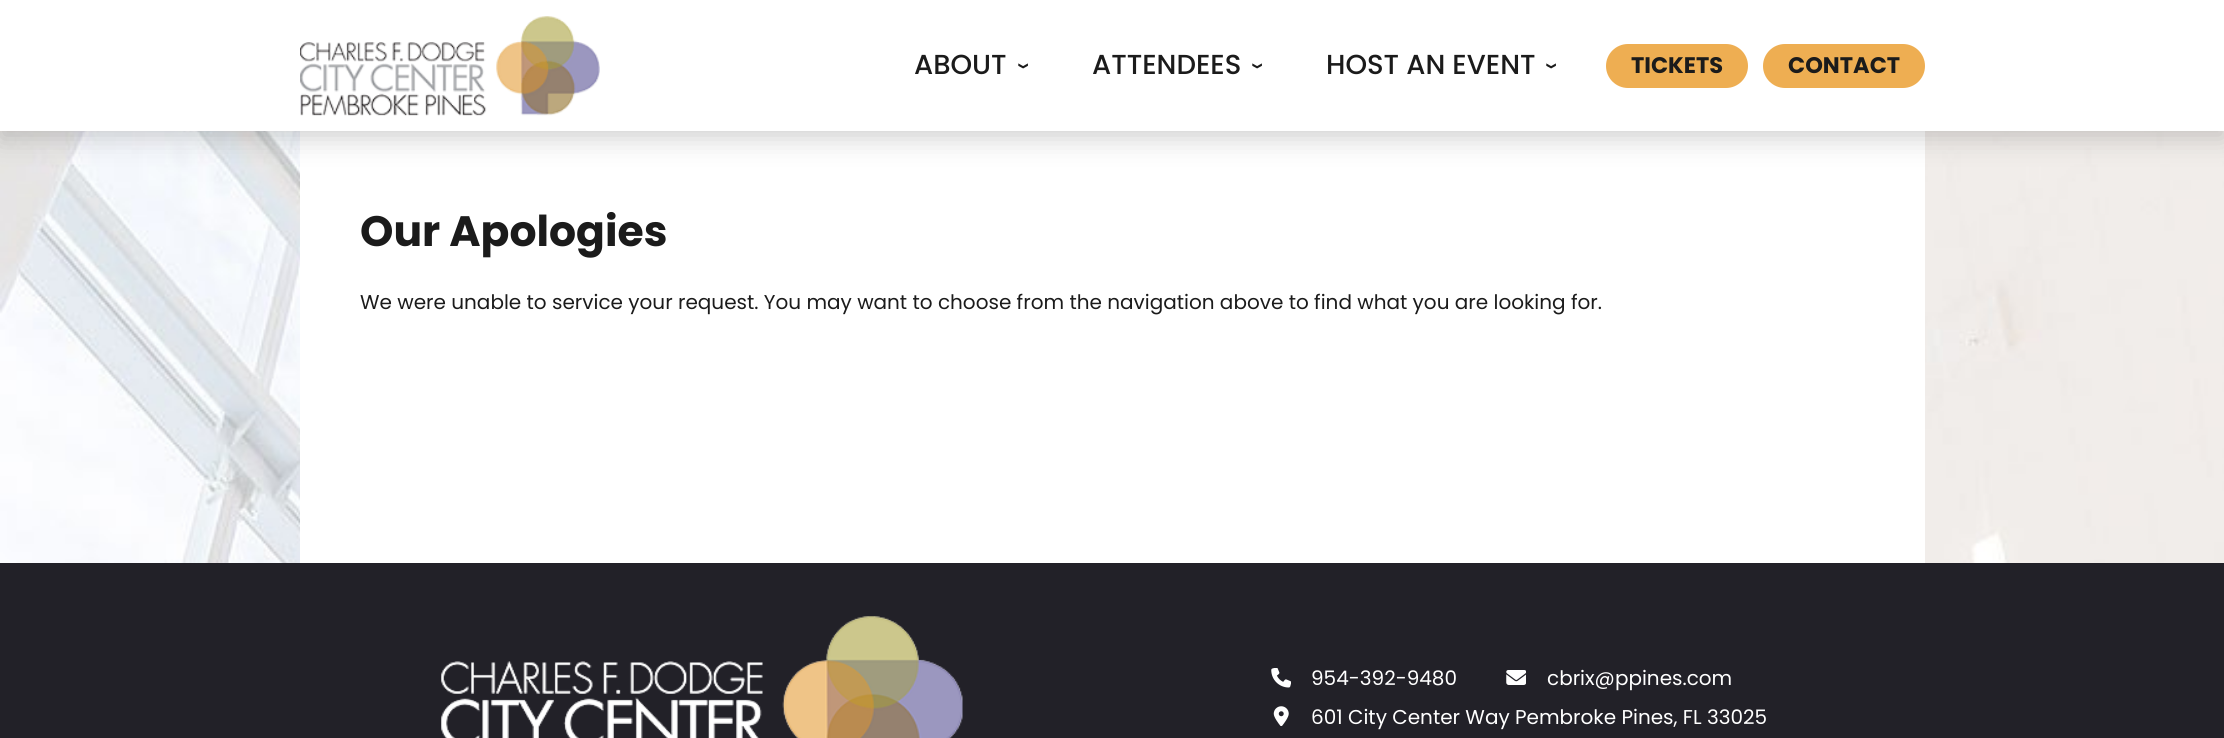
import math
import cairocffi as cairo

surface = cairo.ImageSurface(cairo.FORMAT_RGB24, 2224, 738)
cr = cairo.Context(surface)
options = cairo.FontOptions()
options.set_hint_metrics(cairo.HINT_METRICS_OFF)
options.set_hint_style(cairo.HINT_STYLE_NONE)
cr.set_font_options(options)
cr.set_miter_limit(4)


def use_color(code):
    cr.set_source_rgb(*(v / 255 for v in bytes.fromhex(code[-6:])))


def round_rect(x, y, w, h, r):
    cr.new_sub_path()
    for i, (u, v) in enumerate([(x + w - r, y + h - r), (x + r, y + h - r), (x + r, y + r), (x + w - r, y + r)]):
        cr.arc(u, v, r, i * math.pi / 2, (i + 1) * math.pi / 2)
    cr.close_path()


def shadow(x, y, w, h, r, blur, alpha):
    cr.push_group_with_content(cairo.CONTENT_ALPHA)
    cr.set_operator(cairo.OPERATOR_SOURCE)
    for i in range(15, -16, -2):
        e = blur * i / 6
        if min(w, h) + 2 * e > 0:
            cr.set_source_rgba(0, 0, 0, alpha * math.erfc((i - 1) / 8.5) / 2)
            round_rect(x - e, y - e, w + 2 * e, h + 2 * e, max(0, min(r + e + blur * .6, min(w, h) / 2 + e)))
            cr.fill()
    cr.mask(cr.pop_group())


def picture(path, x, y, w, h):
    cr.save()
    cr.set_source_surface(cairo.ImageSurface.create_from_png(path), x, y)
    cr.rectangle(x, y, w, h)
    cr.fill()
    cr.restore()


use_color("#ffffff")
cr.paint()
picture("img1.png", 0, 131, 2224, 432)
use_color("#ffffff")
cr.rectangle(300, 131, 1625, 432)
cr.fill()
use_color("#1b1b1b")
shadow(0, 8, 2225, 131, 0, 13, 0.2)
use_color("#ffffff")
cr.rectangle(0, 0, 2224, 131)
cr.fill()
picture("img2.png", 300, 16, 300, 100)
cr.select_font_face("Poppins Medium")
cr.set_font_size(27.5)
use_color("#1b1b1b")
cr.move_to(914, 74)
cr.show_text("ABOUT")
cr.select_font_face("Poppins")
cr.save()
cr.translate(1015, 62)
cr.rotate(90 * math.pi / 180)
cr.move_to(0, 0)
cr.show_text("›")
cr.restore()
cr.select_font_face("Poppins Medium")
cr.move_to(1092, 74)
cr.show_text("ATTENDEES")
cr.select_font_face("Poppins")
cr.save()
cr.translate(1249, 62)
cr.rotate(90 * math.pi / 180)
cr.move_to(0, 0)
cr.show_text("›")
cr.restore()
cr.select_font_face("Poppins Medium")
cr.move_to(1326, 74)
cr.show_text("HOST AN EVENT")
cr.select_font_face("Poppins")
cr.save()
cr.translate(1543, 62)
cr.rotate(90 * math.pi / 180)
cr.move_to(0, 0)
cr.show_text("›")
cr.restore()
use_color("#eeae52")
round_rect(1606, 44, 142, 44, 22)
cr.fill()
cr.select_font_face("Poppins", cairo.FONT_SLANT_NORMAL, cairo.FONT_WEIGHT_BOLD)
cr.set_font_size(22.5)
use_color("#1b1b1b")
cr.move_to(1631, 73)
cr.show_text("TICKETS")
use_color("#eeae52")
round_rect(1763, 44, 162, 44, 22)
cr.fill()
use_color("#1b1b1b")
cr.move_to(1788, 73)
cr.show_text("CONTACT")
cr.set_font_size(42.5)
cr.move_to(360, 246)
cr.show_text("Our Apologies")
cr.select_font_face("Poppins")
cr.set_font_size(20)
cr.move_to(360, 309)
cr.show_text("We were unable to service your request. You may want to choose from the navigation above to find what you are looking for.")
use_color("#222128")
cr.rectangle(0, 563, 2224, 175)
cr.fill()
picture("img3.png", 441, 616, 522, 122)
picture("img4.png", 1271, 668, 20, 20)
use_color("#ffffff")
cr.move_to(1311, 685)
cr.show_text("954-392-9480")
picture("img5.png", 1506, 670, 20, 15)
cr.move_to(1547, 685)
cr.show_text("cbrix@ppines.com")
picture("img6.png", 1273, 706, 16, 20)
cr.move_to(1311, 724)
cr.show_text("601 City Center Way Pembroke Pines, FL 33025")
surface.write_to_png("result.png")
